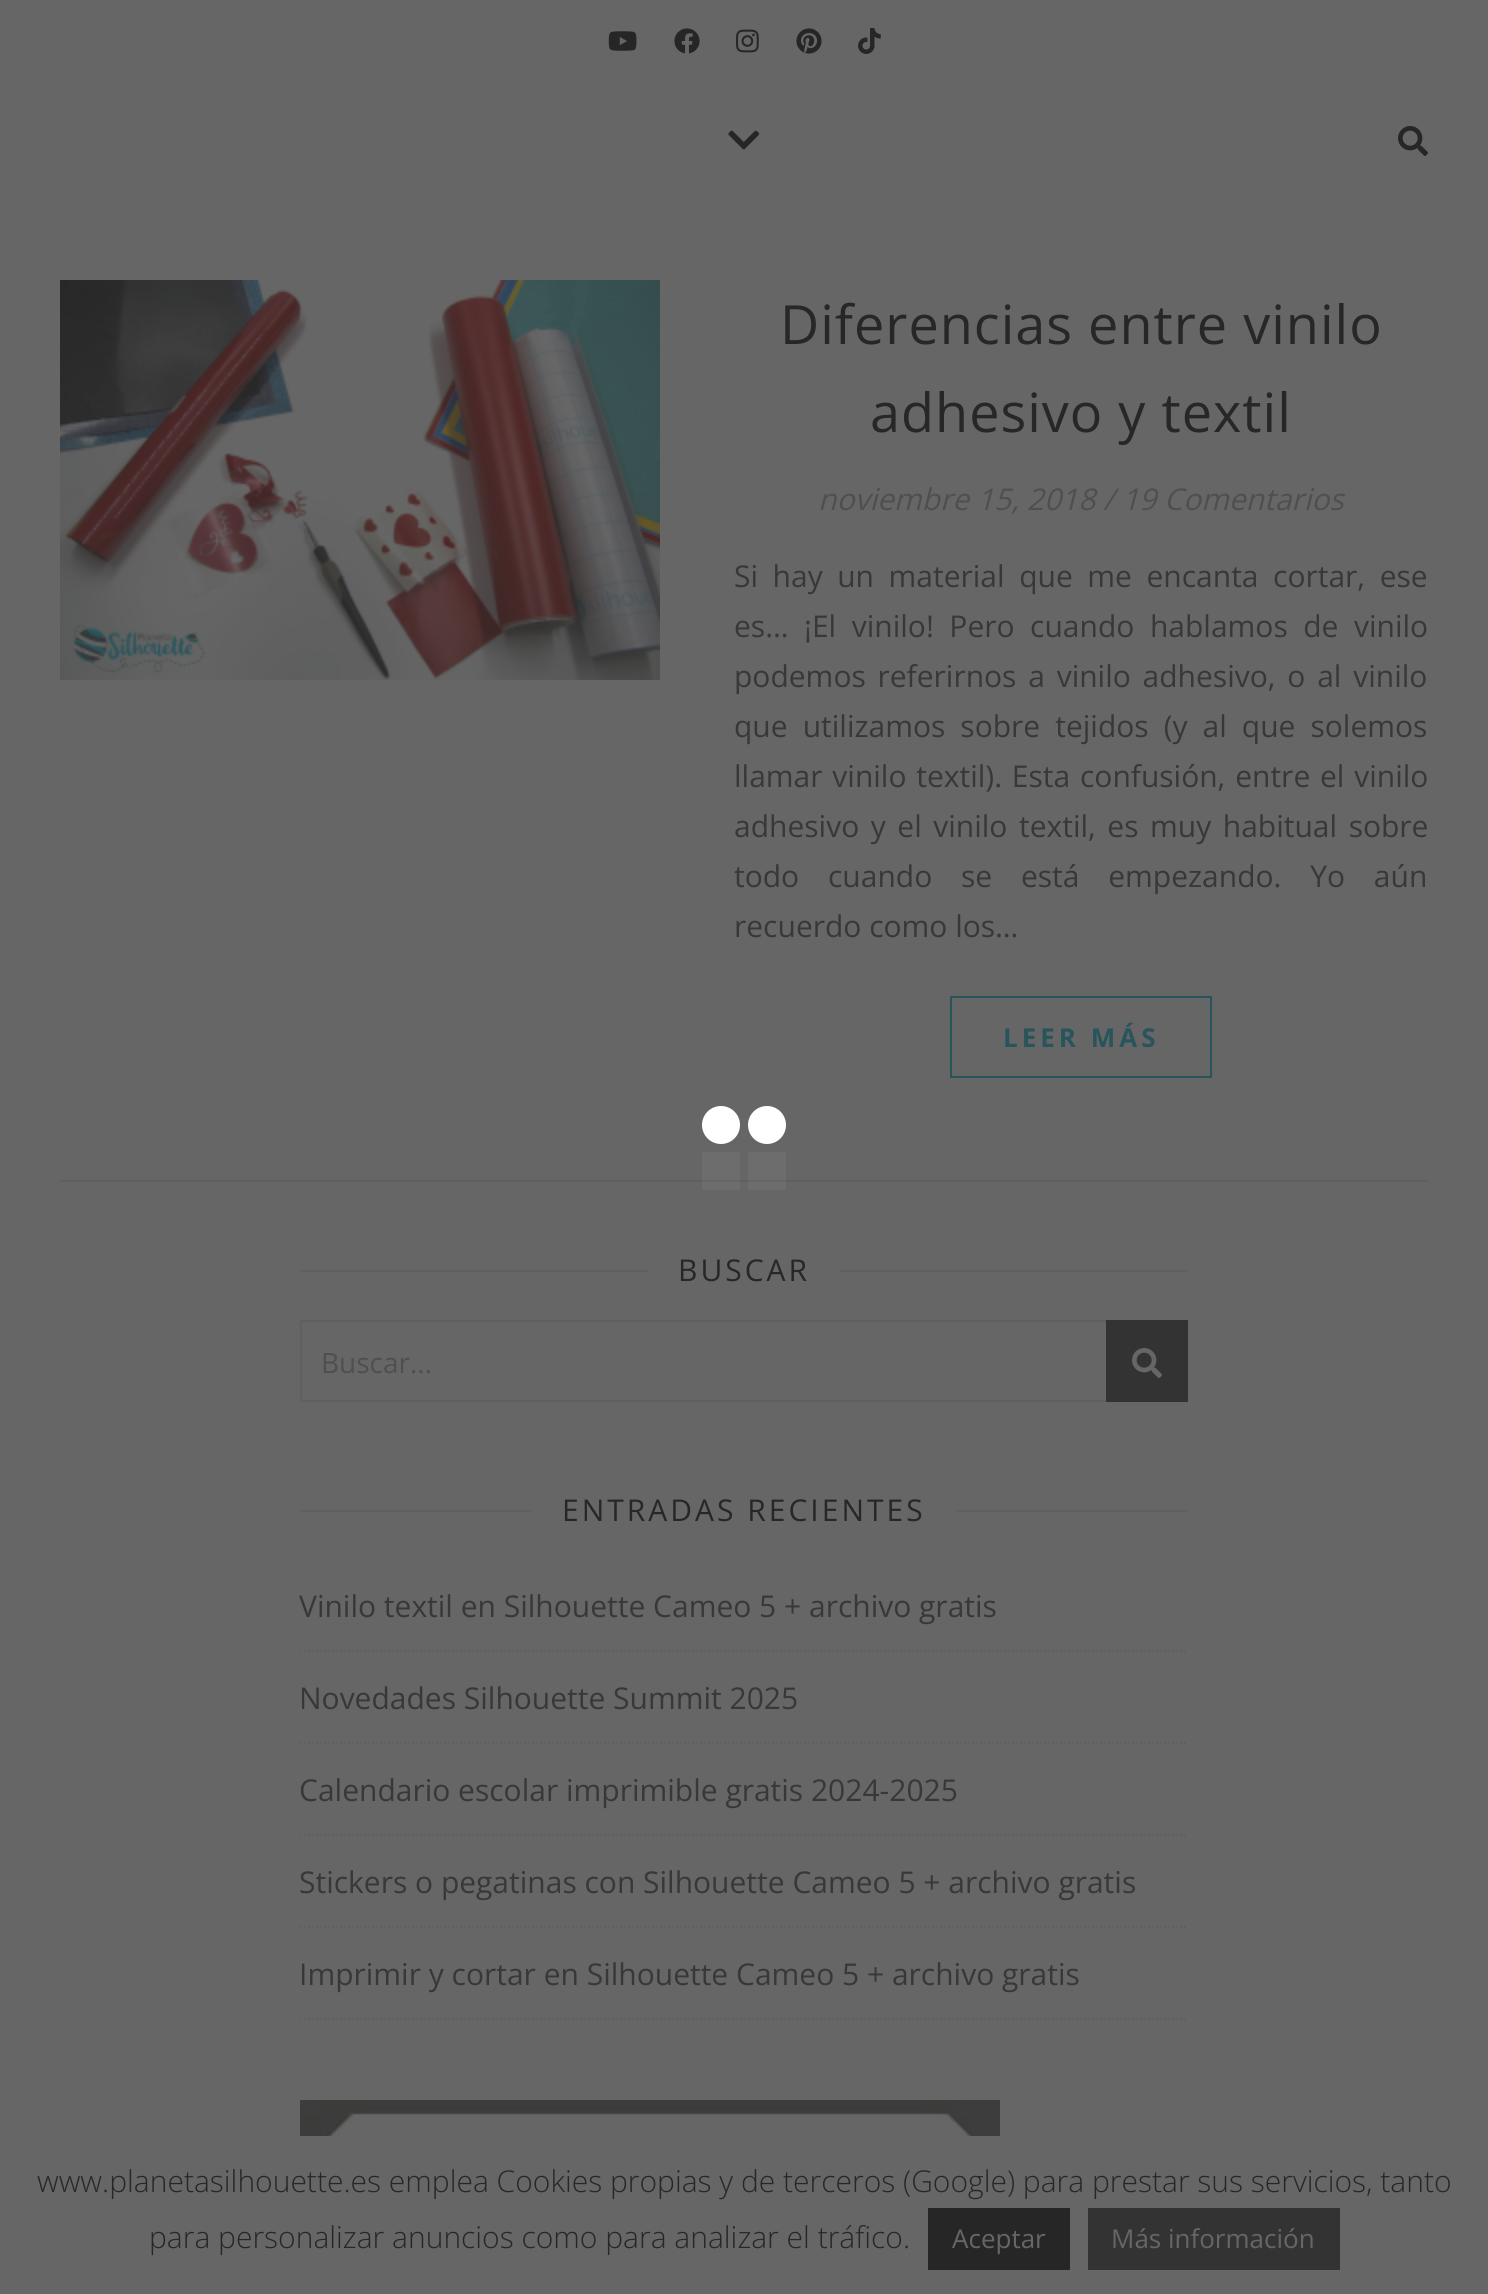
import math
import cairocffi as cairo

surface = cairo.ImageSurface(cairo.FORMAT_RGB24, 1488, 2294)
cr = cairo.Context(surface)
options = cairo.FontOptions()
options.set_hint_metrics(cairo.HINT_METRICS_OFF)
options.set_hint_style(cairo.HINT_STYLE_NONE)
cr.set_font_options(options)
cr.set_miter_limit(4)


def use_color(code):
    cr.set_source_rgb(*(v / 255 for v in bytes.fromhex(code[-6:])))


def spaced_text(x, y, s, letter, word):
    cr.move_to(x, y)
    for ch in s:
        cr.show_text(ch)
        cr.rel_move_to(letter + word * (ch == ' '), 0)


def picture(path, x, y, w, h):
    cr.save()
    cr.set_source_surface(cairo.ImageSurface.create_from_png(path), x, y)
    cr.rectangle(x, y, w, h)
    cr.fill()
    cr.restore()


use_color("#666666")
cr.paint()
picture("img1.png", 608, 31, 29, 20)
picture("img2.png", 674, 28, 26, 26)
picture("img3.png", 736, 29, 23, 24)
picture("img4.png", 796, 28, 26, 26)
picture("img5.png", 858, 28, 23, 26)
picture("img6.png", 728, 130, 32, 20)
picture("img7.png", 1398, 126, 30, 30)
use_color("#606060")
cr.rectangle(60, 1180, 1368, 2)
cr.fill()
picture("img8.png", 60, 280, 600, 400)
cr.select_font_face("Open Sans")
cr.set_font_size(54)
use_color("#272727")
spaced_text(780, 344, "Diferencias entre vinilo", 1, 0)
spaced_text(870, 432, "adhesivo y textil", 1, 0)
cr.select_font_face("Open Sans", cairo.FONT_SLANT_ITALIC)
cr.set_font_size(30)
use_color("#4f4f4f")
cr.move_to(818, 510)
cr.show_text("noviembre 15, 2018 / 19 Comentarios")
cr.select_font_face("Open Sans")
use_color("#383838")
spaced_text(734, 587, "Si hay un material que me encanta cortar, ese", 0, 6.75)
spaced_text(734, 637, "es… ¡El vinilo! Pero cuando hablamos de vinilo", 0, 7.75)
spaced_text(734, 687, "podemos referirnos a vinilo adhesivo, o al vinilo", 0, 4)
spaced_text(734, 737, "que utilizamos sobre tejidos (y al que solemos", 0, 7.25)
spaced_text(734, 787, "llamar vinilo textil). Esta confusión, entre el vinilo", 0, 2)
spaced_text(734, 837, "adhesivo y el vinilo textil, es muy habitual sobre", 0, 3.75)
spaced_text(734, 887, "todo cuando se está empezando. Yo aún", 0, 21)
cr.move_to(734, 937)
cr.show_text("recuerdo como los…")
cr.rectangle(951, 997, 260, 80)
use_color("#28545b")
cr.stroke()
cr.select_font_face("Open Sans", cairo.FONT_SLANT_NORMAL, cairo.FONT_WEIGHT_BOLD)
cr.set_font_size(26)
spaced_text(1003, 1047, "LEER MÁS", 4, 0)
use_color("#606060")
cr.rectangle(300, 1270, 348, 2)
cr.fill()
cr.select_font_face("Open Sans")
cr.set_font_size(30)
use_color("#272727")
spaced_text(678, 1281, "BUSCAR", 3, 0)
use_color("#606060")
cr.rectangle(840, 1270, 348, 2)
cr.fill()
cr.rectangle(301, 1321, 886, 80)
cr.stroke()
cr.set_font_size(28)
use_color("#4f4f4f")
cr.move_to(321, 1373)
cr.show_text("Buscar...")
use_color("#333333")
cr.rectangle(1106, 1320, 82, 82)
cr.fill()
picture("img9.png", 1132, 1348, 30, 30)
use_color("#606060")
cr.rectangle(300, 1510, 232, 2)
cr.fill()
cr.set_font_size(30)
use_color("#272727")
spaced_text(562, 1521, "ENTRADAS RECIENTES", 3, 0)
use_color("#606060")
cr.rectangle(956, 1510, 232, 2)
cr.fill()
cr.new_path()
cr.move_to(300, 1651)
cr.line_to(1188, 1651)
cr.set_dash([2, 2])
cr.stroke()
use_color("#383838")
cr.move_to(299, 1617)
cr.show_text("Vinilo textil en Silhouette Cameo 5 + archivo gratis")
cr.new_path()
cr.move_to(300, 1743)
cr.line_to(1188, 1743)
use_color("#606060")
cr.stroke()
use_color("#383838")
cr.move_to(299, 1709)
cr.show_text("Novedades Silhouette Summit 2025")
cr.new_path()
cr.move_to(300, 1835)
cr.line_to(1188, 1835)
use_color("#606060")
cr.stroke()
use_color("#383838")
cr.move_to(299, 1801)
cr.show_text("Calendario escolar imprimible gratis 2024-2025")
cr.new_path()
cr.move_to(300, 1927)
cr.line_to(1188, 1927)
use_color("#606060")
cr.stroke()
use_color("#383838")
cr.move_to(299, 1893)
cr.show_text("Stickers o pegatinas con Silhouette Cameo 5 + archivo gratis")
cr.new_path()
cr.move_to(300, 2019)
cr.line_to(1188, 2019)
use_color("#606060")
cr.stroke()
use_color("#383838")
cr.move_to(299, 1985)
cr.show_text("Imprimir y cortar en Silhouette Cameo 5 + archivo gratis")
picture("img10.png", 300, 2100, 700, 36)
use_color("#ffffff")
cr.arc(721, 1125, 19, 0, 2 * math.pi)
cr.fill()
cr.arc(767, 1125, 19, 0, 2 * math.pi)
cr.fill()
cr.set_source_rgba(1, 1, 1, 0.05)
cr.rectangle(702, 1152, 38, 38)
cr.fill()
cr.rectangle(748, 1152, 38, 38)
cr.fill()
cr.select_font_face("Open Sans Light")
use_color("#272727")
cr.move_to(37, 2192)
cr.show_text("www.planetasilhouette.es emplea Cookies propias y de terceros (Google) para prestar sus servicios, tanto")
cr.move_to(149, 2248)
cr.show_text("para personalizar anuncios como para analizar el tráfico.")
use_color("#262626")
cr.rectangle(928, 2208, 142, 62)
cr.fill()
cr.select_font_face("Open Sans")
cr.set_font_size(26)
use_color("#666666")
cr.move_to(952, 2248)
cr.show_text("Aceptar")
use_color("#333333")
cr.rectangle(1088, 2208, 252, 62)
cr.fill()
use_color("#666666")
cr.move_to(1111, 2248)
cr.show_text("Más información")
surface.write_to_png("result.png")
